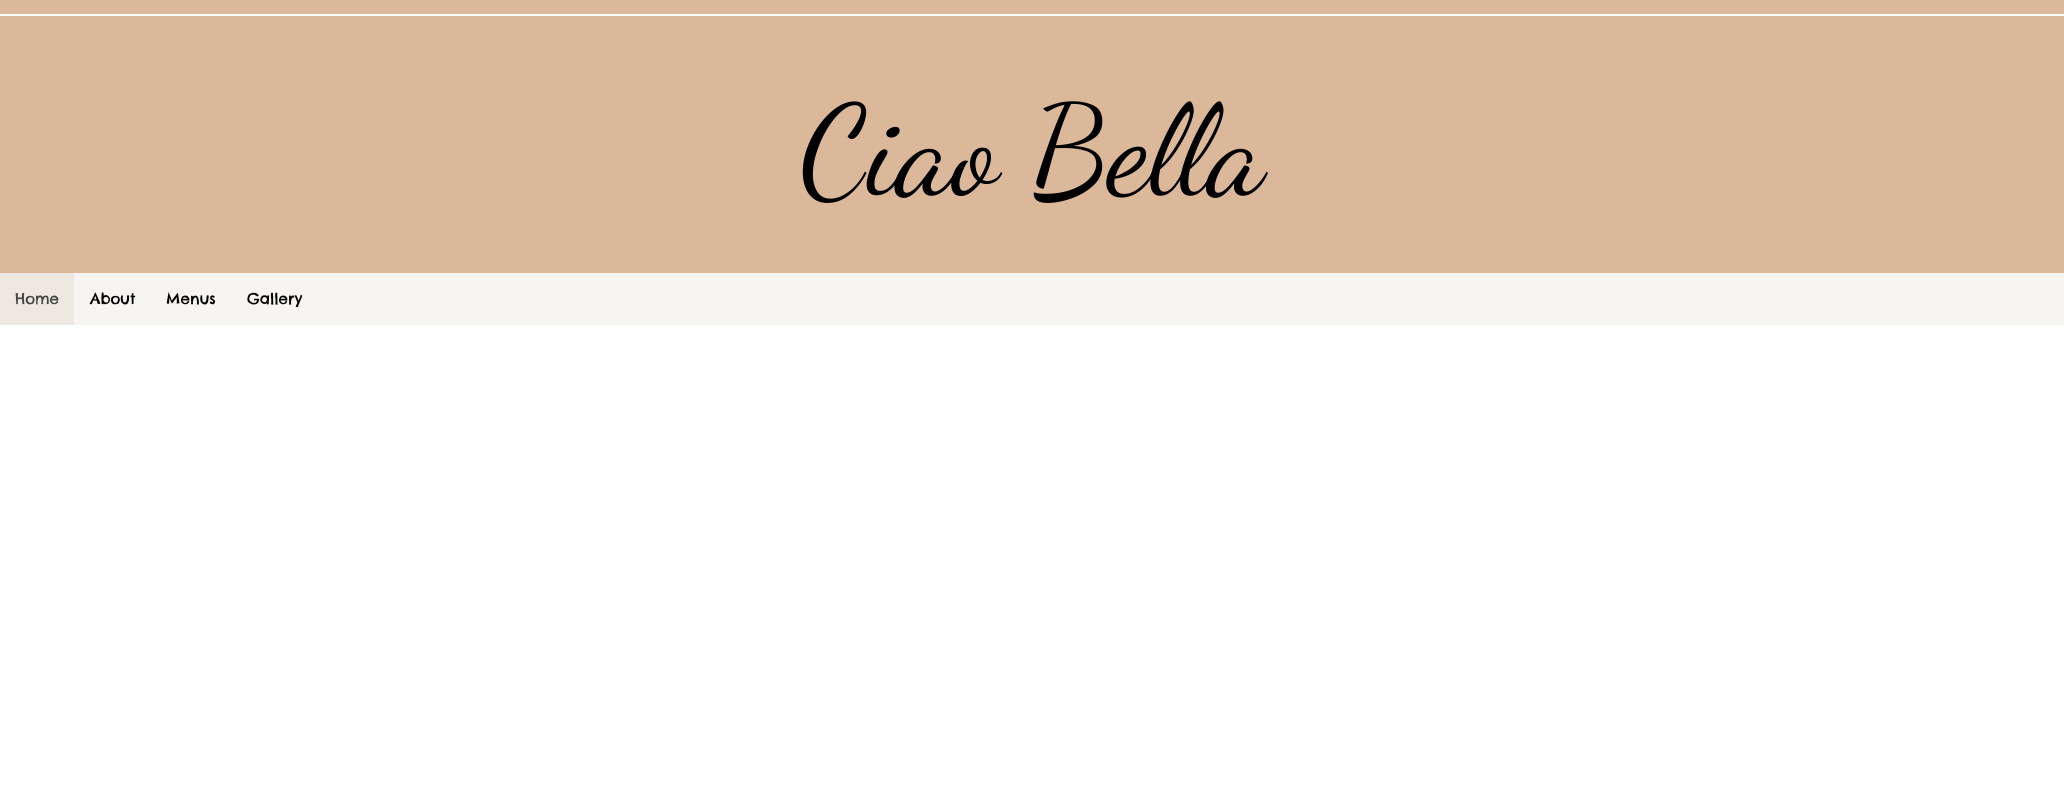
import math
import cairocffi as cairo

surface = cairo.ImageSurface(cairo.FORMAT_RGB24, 2064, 786)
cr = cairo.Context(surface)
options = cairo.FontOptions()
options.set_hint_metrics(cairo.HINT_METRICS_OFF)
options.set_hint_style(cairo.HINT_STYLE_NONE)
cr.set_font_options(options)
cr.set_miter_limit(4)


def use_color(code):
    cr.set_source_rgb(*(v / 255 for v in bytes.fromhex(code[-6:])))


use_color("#ffffff")
cr.paint()
use_color("#dbb89a")
cr.rectangle(0, 0, 2064, 273)
cr.fill()
use_color("#ffffff")
cr.rectangle(0, 14, 2064, 2)
cr.fill()
cr.select_font_face("Dancing Script")
cr.set_font_size(126)
use_color("#000000")
cr.move_to(800, 192)
cr.show_text("Ciao Bella")
use_color("#f7f5f1")
cr.rectangle(74, 273, 1990, 52)
cr.fill()
use_color("#ede9e1")
cr.rectangle(0, 273, 74, 52)
cr.fill()
cr.select_font_face("Chelsea Market")
cr.set_font_size(15)
use_color("#444444")
cr.move_to(15, 304)
cr.show_text("Home")
use_color("#000000")
cr.move_to(90, 304)
cr.show_text("About")
cr.move_to(166, 304)
cr.show_text("Menus")
cr.move_to(247, 304)
cr.show_text("Gallery")
surface.write_to_png("result.png")
